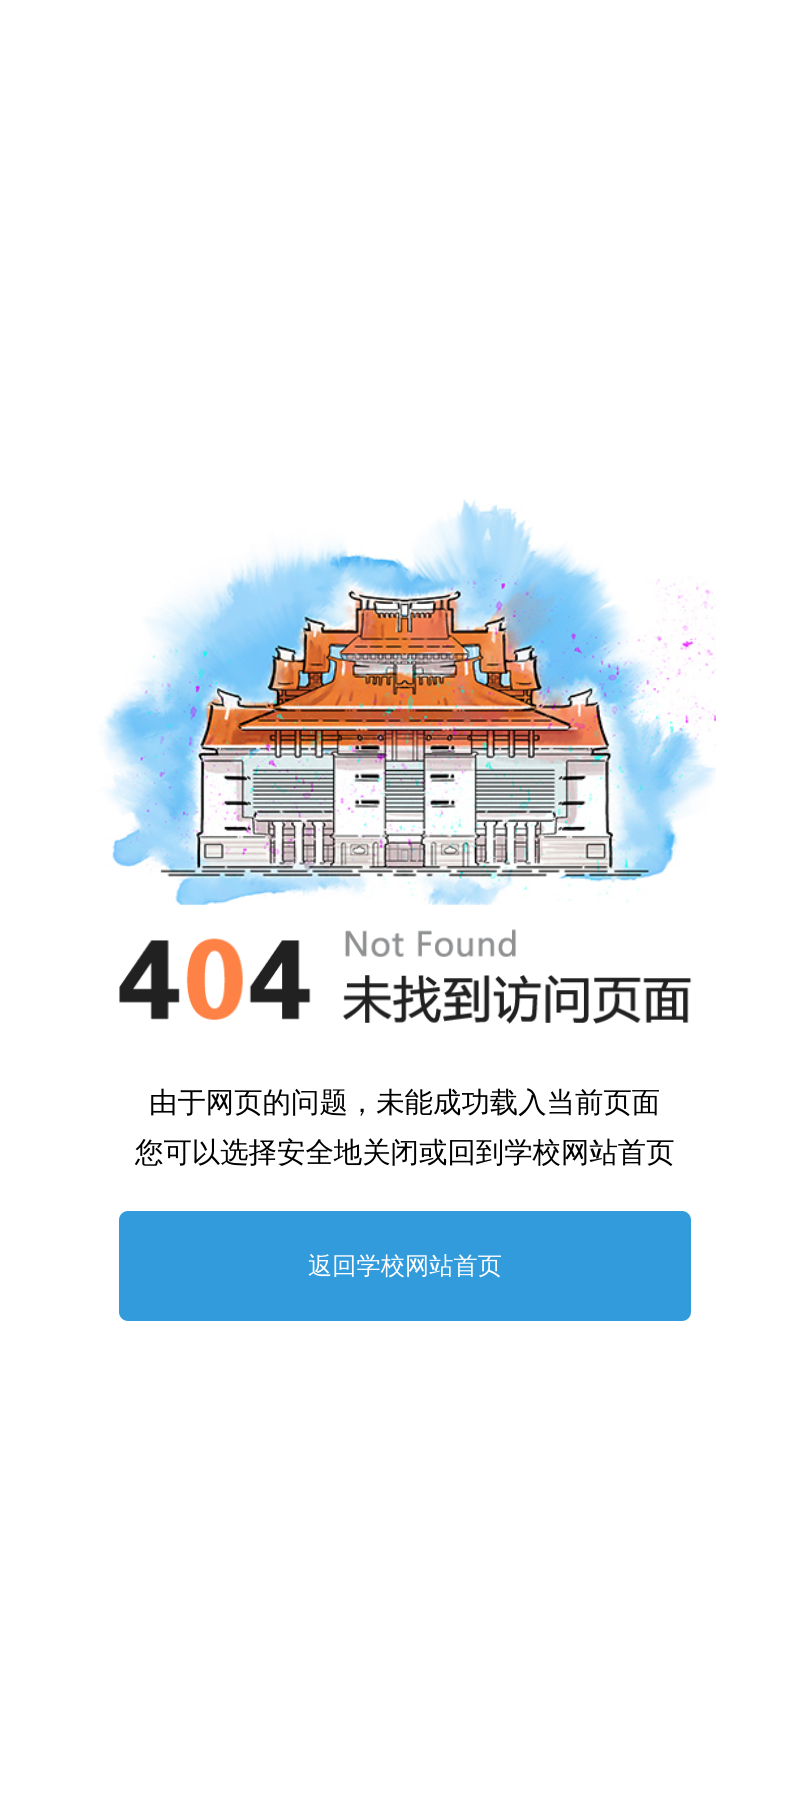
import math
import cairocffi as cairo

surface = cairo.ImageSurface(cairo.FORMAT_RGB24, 809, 1814)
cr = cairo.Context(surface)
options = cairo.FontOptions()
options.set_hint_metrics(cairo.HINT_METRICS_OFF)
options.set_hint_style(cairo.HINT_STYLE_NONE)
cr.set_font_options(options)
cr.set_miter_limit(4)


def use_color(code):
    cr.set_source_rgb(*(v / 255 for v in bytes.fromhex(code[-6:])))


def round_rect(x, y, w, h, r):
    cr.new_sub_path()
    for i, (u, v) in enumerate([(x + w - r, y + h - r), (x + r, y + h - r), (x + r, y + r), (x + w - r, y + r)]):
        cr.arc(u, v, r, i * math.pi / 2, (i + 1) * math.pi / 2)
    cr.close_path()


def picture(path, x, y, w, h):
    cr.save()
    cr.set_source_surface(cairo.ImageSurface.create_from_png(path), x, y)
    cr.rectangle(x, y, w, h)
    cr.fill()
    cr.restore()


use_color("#ffffff")
cr.paint()
picture("img1.png", 98, 499, 618, 406)
picture("img2.png", 119, 929, 573, 95)
cr.select_font_face("WenQuanYi Zen Hei Medium")
cr.set_font_size(28.4)
use_color("#000000")
cr.move_to(149, 1112)
cr.show_text("由于网页的问题，未能成功载入当前页面")
cr.move_to(135, 1162)
cr.show_text("您可以选择安全地关闭或回到学校网站首页")
use_color("#319bdc")
round_rect(119, 1211, 572, 110, 9)
cr.fill()
cr.set_font_size(24.25)
use_color("#ffffff")
cr.move_to(308, 1274)
cr.show_text("返回学校网站首页")
surface.write_to_png("result.png")
